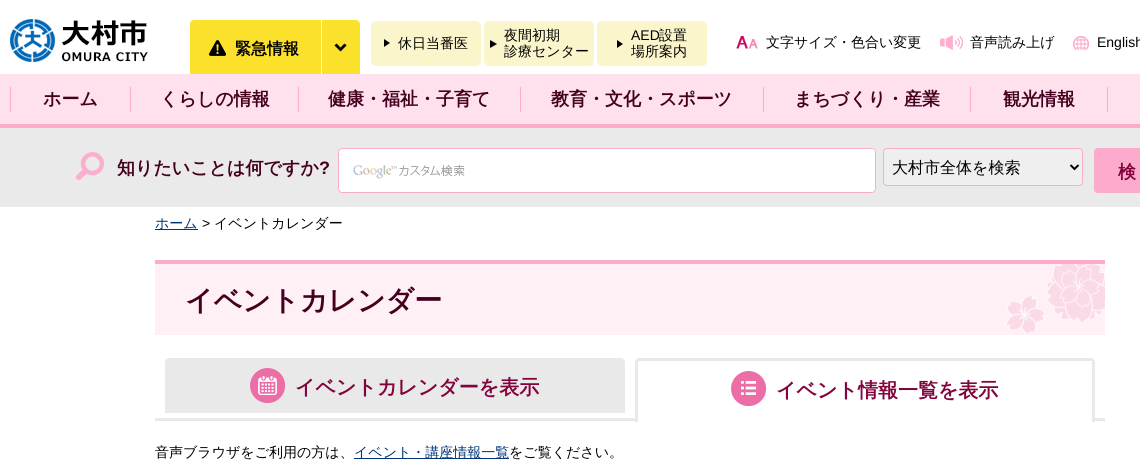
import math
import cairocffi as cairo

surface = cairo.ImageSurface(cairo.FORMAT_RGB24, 1140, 471)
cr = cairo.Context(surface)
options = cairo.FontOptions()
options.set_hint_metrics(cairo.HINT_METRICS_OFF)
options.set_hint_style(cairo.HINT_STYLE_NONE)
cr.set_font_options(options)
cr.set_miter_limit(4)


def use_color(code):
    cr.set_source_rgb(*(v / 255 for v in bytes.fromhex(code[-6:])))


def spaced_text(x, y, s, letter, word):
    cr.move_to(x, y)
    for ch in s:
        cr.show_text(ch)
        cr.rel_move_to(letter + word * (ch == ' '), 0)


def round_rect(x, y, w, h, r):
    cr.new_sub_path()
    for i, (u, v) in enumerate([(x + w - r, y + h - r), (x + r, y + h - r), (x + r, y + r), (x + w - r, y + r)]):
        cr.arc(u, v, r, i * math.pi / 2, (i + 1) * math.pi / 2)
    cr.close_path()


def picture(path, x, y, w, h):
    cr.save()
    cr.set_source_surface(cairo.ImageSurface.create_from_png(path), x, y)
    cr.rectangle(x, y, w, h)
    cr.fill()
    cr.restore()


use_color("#ffffff")
cr.paint()
picture("img1.png", 10, 19, 138, 43)
use_color("#fce12c")
cr.new_path()
cr.move_to(194, 20)
cr.line_to(320, 20)
cr.line_to(320, 74)
cr.line_to(190, 74)
cr.line_to(190, 24)
cr.curve_to(190, 22, 192, 20, 194, 20)
cr.close_path()
cr.fill()
picture("img2.png", 209, 40, 17, 16)
cr.select_font_face("WenQuanYi Zen Hei", cairo.FONT_SLANT_NORMAL, cairo.FONT_WEIGHT_BOLD)
cr.set_font_size(16)
use_color("#000000")
cr.move_to(235, 54)
cr.show_text("緊急情報")
use_color("#fce12c")
cr.new_path()
cr.move_to(320, 20)
cr.line_to(356, 20)
cr.curve_to(358, 20, 360, 22, 360, 24)
cr.line_to(360, 74)
cr.line_to(320, 74)
cr.close_path()
cr.fill()
picture("img3.png", 331, 42, 16, 10)
use_color("#ffffff")
cr.rectangle(321, 20, 1, 54)
cr.fill()
use_color("#fbf5cb")
round_rect(371, 21, 110, 45, 5)
cr.fill()
picture("img4.png", 384, 39, 6, 8)
cr.select_font_face("WenQuanYi Zen Hei Medium")
cr.set_font_size(14)
use_color("#000000")
cr.move_to(398, 48)
cr.show_text("休日当番医")
use_color("#fbf5cb")
round_rect(484, 21, 110, 45, 5)
cr.fill()
picture("img5.png", 490, 40, 7, 8)
use_color("#000000")
cr.move_to(504, 40)
cr.show_text("夜間初期")
cr.move_to(504, 56)
cr.show_text("診療センター")
use_color("#fbf5cb")
round_rect(597, 21, 110, 45, 5)
cr.fill()
picture("img4.png", 617, 40, 6, 8)
cr.select_font_face("Liberation Sans")
use_color("#000000")
cr.move_to(631, 40)
cr.show_text("AED")
cr.select_font_face("WenQuanYi Zen Hei Medium")
cr.move_to(659, 40)
cr.show_text("設置")
cr.move_to(631, 56)
cr.show_text("場所案内")
picture("img6.png", 736, 36, 22, 13)
cr.move_to(766, 47)
cr.show_text("文字サイズ・色合い変更")
picture("img7.png", 940, 35, 23, 15)
cr.move_to(970, 47)
cr.show_text("音声読み上げ")
picture("img8.png", 1073, 36, 16, 14)
cr.select_font_face("Liberation Sans")
cr.move_to(1097, 47)
cr.show_text("English")
use_color("#ffe1ee")
cr.rectangle(0, 74, 1140, 50)
cr.fill()
use_color("#fdabcd")
cr.rectangle(10, 87, 1, 25)
cr.fill()
cr.select_font_face("WenQuanYi Zen Hei", cairo.FONT_SLANT_NORMAL, cairo.FONT_WEIGHT_BOLD)
cr.set_font_size(18)
use_color("#44001e")
cr.move_to(43, 105)
cr.show_text("ホーム")
use_color("#fdabcd")
cr.rectangle(130, 87, 1, 25)
cr.fill()
use_color("#44001e")
cr.move_to(160, 105)
cr.show_text("くらしの情報")
use_color("#fdabcd")
cr.rectangle(298, 87, 1, 25)
cr.fill()
use_color("#44001e")
cr.move_to(328, 105)
cr.show_text("健康・福祉・子育て")
use_color("#fdabcd")
cr.rectangle(520, 87, 1, 25)
cr.fill()
use_color("#44001e")
cr.move_to(551, 105)
cr.show_text("教育・文化・スポーツ")
use_color("#fdabcd")
cr.rectangle(763, 87, 1, 25)
cr.fill()
use_color("#44001e")
cr.move_to(794, 105)
cr.show_text("まちづくり・産業")
use_color("#fdabcd")
cr.rectangle(970, 87, 1, 25)
cr.fill()
use_color("#44001e")
cr.move_to(1003, 105)
cr.show_text("観光情報")
use_color("#fdabcd")
cr.rectangle(1107, 87, 1, 25)
cr.fill()
use_color("#eaeaea")
cr.rectangle(0, 128, 1140, 79)
cr.fill()
use_color("#fdabcd")
cr.rectangle(0, 124, 1140, 4)
cr.fill()
picture("img9.png", 76, 152, 28, 28)
use_color("#44001e")
cr.move_to(117, 174)
cr.show_text("知りたいことは何ですか")
cr.select_font_face("Liberation Sans", cairo.FONT_SLANT_NORMAL, cairo.FONT_WEIGHT_BOLD)
cr.move_to(319, 174)
cr.show_text("?")
use_color("#ffffff")
round_rect(338, 148, 538, 45, 4)
cr.fill()
picture("img10.png", 353, 165, 112, 14)
round_rect(338.5, 148.5, 537, 44, 3.5)
use_color("#fdabcd")
cr.set_line_width(1)
cr.stroke()
use_color("#efefef")
round_rect(883.5, 148.5, 199, 37, 3.5)
cr.fill_preserve()
use_color("#fdabcd")
cr.stroke()
cr.new_path()
cr.move_to(1070.5, 165)
cr.line_to(1074.5, 169)
cr.line_to(1078.5, 165)
use_color("#000000")
cr.set_line_width(2)
cr.stroke()
cr.select_font_face("WenQuanYi Zen Hei Medium")
cr.set_font_size(16)
cr.move_to(892, 173)
cr.show_text("大村市全体を検索")
use_color("#fdabcd")
round_rect(1094, 148, 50, 45, 4)
cr.fill()
cr.select_font_face("WenQuanYi Zen Hei", cairo.FONT_SLANT_NORMAL, cairo.FONT_WEIGHT_BOLD)
cr.set_font_size(18)
use_color("#83033c")
spaced_text(1118, 178, "検", 5, 0)
use_color("#003377")
cr.rectangle(155, 229, 43, 1)
cr.fill()
cr.select_font_face("WenQuanYi Zen Hei Medium")
cr.set_font_size(14)
cr.move_to(155, 228)
cr.show_text("ホーム")
cr.select_font_face("Liberation Sans")
use_color("#000000")
cr.move_to(202, 228)
cr.show_text(">")
cr.select_font_face("WenQuanYi Zen Hei Medium")
cr.move_to(214, 228)
cr.show_text("イベントカレンダー")
use_color("#fff0f6")
cr.rectangle(155, 264, 850, 71)
cr.fill()
picture("img11.png", 1005, 264, 100, 71)
use_color("#fdabcd")
cr.rectangle(155, 260, 950, 4)
cr.fill()
cr.select_font_face("WenQuanYi Zen Hei", cairo.FONT_SLANT_NORMAL, cairo.FONT_WEIGHT_BOLD)
cr.set_font_size(28)
use_color("#44001e")
cr.move_to(185, 310)
cr.show_text("イベントカレンダー")
use_color("#e9e9e9")
cr.rectangle(155, 418, 950, 3)
cr.fill()
cr.new_path()
cr.move_to(169, 358)
cr.line_to(621, 358)
cr.curve_to(623, 358, 625, 360, 625, 362)
cr.line_to(625, 413)
cr.line_to(165, 413)
cr.line_to(165, 362)
cr.curve_to(165, 360, 167, 358, 169, 358)
cr.close_path()
cr.fill()
picture("img12.png", 250, 368, 35, 35)
cr.set_font_size(20)
use_color("#83033c")
cr.move_to(295, 394)
cr.show_text("イベントカレンダーを表示")
use_color("#ffffff")
cr.new_path()
cr.move_to(639, 358)
cr.line_to(1091, 358)
cr.curve_to(1093, 358, 1095, 360, 1095, 362)
cr.line_to(1095, 422)
cr.line_to(635, 422)
cr.line_to(635, 362)
cr.curve_to(635, 360, 637, 358, 639, 358)
cr.close_path()
cr.fill()
use_color("#e9e9e9")
cr.set_fill_rule(cairo.FILL_RULE_EVEN_ODD)
cr.new_path()
cr.move_to(639, 358)
cr.line_to(1091, 358)
cr.curve_to(1093, 358, 1095, 360, 1095, 362)
cr.line_to(1095, 422)
cr.line_to(635, 422)
cr.line_to(635, 362)
cr.curve_to(635, 360, 637, 358, 639, 358)
cr.close_path()
cr.move_to(639, 361)
cr.line_to(1091, 361)
cr.curve_to(1092, 361, 1092, 361, 1092, 362)
cr.line_to(1092, 422)
cr.line_to(638, 422)
cr.line_to(638, 362)
cr.close_path()
cr.fill()
picture("img13.png", 731, 371, 35, 35)
use_color("#83033c")
cr.move_to(776, 397)
cr.show_text("イベント情報一覧を表示")
cr.select_font_face("WenQuanYi Zen Hei Medium")
cr.set_font_size(14)
use_color("#000000")
cr.move_to(155, 457)
cr.show_text("音声ブラウザをご利用の方は、")
use_color("#003377")
cr.rectangle(354, 458, 155, 1)
cr.fill()
cr.move_to(354, 457)
cr.show_text("イベント・講座情報一覧")
use_color("#000000")
cr.move_to(509, 457)
cr.show_text("をご覧ください。")
surface.write_to_png("result.png")
